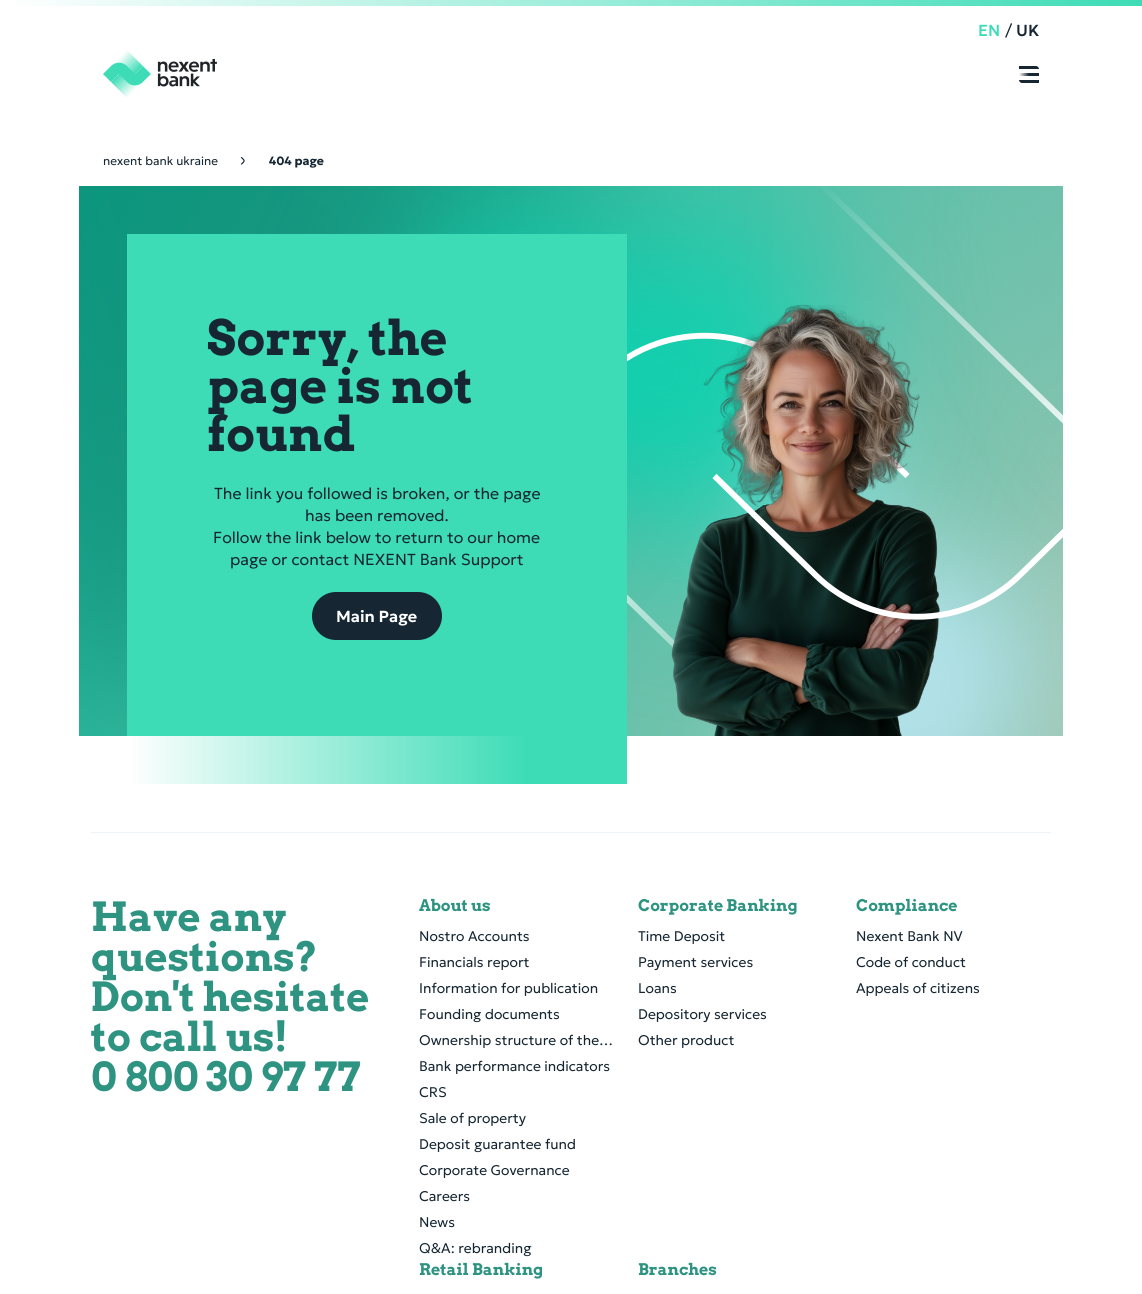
import math
import cairocffi as cairo

surface = cairo.ImageSurface(cairo.FORMAT_RGB24, 1142, 1294)
cr = cairo.Context(surface)
options = cairo.FontOptions()
options.set_hint_metrics(cairo.HINT_METRICS_OFF)
options.set_hint_style(cairo.HINT_STYLE_NONE)
cr.set_font_options(options)
cr.set_miter_limit(4)


def use_color(code):
    cr.set_source_rgb(*(v / 255 for v in bytes.fromhex(code[-6:])))


def round_rect(x, y, w, h, r):
    cr.new_sub_path()
    for i, (u, v) in enumerate([(x + w - r, y + h - r), (x + r, y + h - r), (x + r, y + r), (x + w - r, y + r)]):
        cr.arc(u, v, r, i * math.pi / 2, (i + 1) * math.pi / 2)
    cr.close_path()


def picture(path, x, y, w, h):
    cr.save()
    cr.set_source_surface(cairo.ImageSurface.create_from_png(path), x, y)
    cr.rectangle(x, y, w, h)
    cr.fill()
    cr.restore()


use_color("#ffffff")
cr.paint()
gradient = cairo.LinearGradient(1142, 3.6, 0, 2.4)
gradient.add_color_stop_rgba(0, 0.239, 0.863, 0.714, 1)
gradient.add_color_stop_rgba(1, 1, 1, 1, 1)
cr.set_source(gradient)
cr.rectangle(15, 0, 1127, 6)
cr.fill()
cr.select_font_face("Geologica Medium")
cr.set_font_size(16)
use_color("#3ddcb6")
cr.move_to(978, 36)
cr.show_text("EN")
cr.select_font_face("Geologica Light")
use_color("#162632")
cr.move_to(1005, 36)
cr.show_text("/")
cr.select_font_face("Geologica Medium")
cr.move_to(1016, 36)
cr.show_text("UK")
picture("img1.png", 103, 51, 114, 46)
cr.new_path()
cr.move_to(1019, 66)
cr.line_to(1036, 66)
cr.curve_to(1037.5, 66, 1039, 67.5, 1039, 69)
cr.line_to(1019, 69)
cr.close_path()
cr.fill()
gradient = cairo.LinearGradient(1019, 75, 1039, 75)
gradient.add_color_stop_rgba(0, 1, 1, 1, 1)
gradient.add_color_stop_rgba(0.5, 0.086, 0.149, 0.196, 1)
cr.set_source(gradient)
cr.rectangle(1019, 73, 20, 3)
cr.fill()
use_color("#162632")
cr.new_path()
cr.move_to(1019, 80)
cr.line_to(1039, 80)
cr.line_to(1039, 83)
cr.line_to(1022, 83)
cr.curve_to(1020.5, 83, 1019, 81.5, 1019, 80)
cr.close_path()
cr.fill()
cr.select_font_face("Geologica Light")
cr.set_font_size(12)
cr.move_to(103, 165)
cr.show_text("nexent bank ukraine")
picture("img2.png", 240, 157, 5, 8)
cr.select_font_face("Geologica", cairo.FONT_SLANT_NORMAL, cairo.FONT_WEIGHT_BOLD)
cr.move_to(269, 165)
cr.show_text("404 page")
picture("img4.png", 79, 186, 984, 550)
cr.new_path()
cr.move_to(806, 773)
cr.line_to(501, 476)
cr.line_to(602.5, 377)
cr.curve_to(659.5, 322, 749.5, 322, 806, 377)
cr.line_to(907.5, 476)
gradient = cairo.LinearGradient(501, 773, 501, 479)
gradient.add_color_stop_rgba(0, 1, 1, 1, 0)
gradient.add_color_stop_rgba(1, 1, 1, 1, 1)
cr.set_source(gradient)
cr.set_line_width(5.9)
cr.stroke()
picture("img3.png", 671, 304, 269, 432)
cr.new_path()
cr.move_to(816, 179)
cr.line_to(1121, 476)
cr.line_to(1019.5, 575.5)
cr.curve_to(962.5, 630.5, 872.5, 630.5, 816, 575.5)
cr.line_to(714.5, 476)
gradient = cairo.LinearGradient(1121, 179, 1121, 474)
gradient.add_color_stop_rgba(0, 1, 1, 1, 0)
gradient.add_color_stop_rgba(1, 1, 1, 1, 1)
cr.set_source(gradient)
cr.stroke()
use_color("#3ddcb6")
cr.rectangle(127, 234, 500, 502)
cr.fill()
cr.select_font_face("Arvo", cairo.FONT_SLANT_NORMAL, cairo.FONT_WEIGHT_BOLD)
cr.set_font_size(48)
use_color("#162632")
cr.move_to(207, 355)
cr.show_text("Sorry, the")
cr.move_to(207, 403)
cr.show_text("page is not")
cr.move_to(207, 451)
cr.show_text("found")
cr.select_font_face("Geologica Light")
cr.set_font_size(16)
cr.move_to(214, 499)
cr.show_text("The link you followed is broken, or the page")
cr.move_to(305, 521)
cr.show_text("has been removed.")
cr.move_to(213, 543)
cr.show_text("Follow the link below to return to our home")
cr.move_to(230, 565)
cr.show_text("page or contact NEXENT Bank Support")
round_rect(312, 592, 130, 48, 24)
cr.fill()
cr.select_font_face("Geologica SemiBold")
use_color("#ffffff")
cr.move_to(336, 622)
cr.show_text("Main Page")
gradient = cairo.LinearGradient(127, 760, 627, 760)
gradient.add_color_stop_rgba(0, 1, 1, 1, 1)
gradient.add_color_stop_rgba(0.8, 0.239, 0.863, 0.714, 1)
gradient.add_color_stop_rgba(1, 0.239, 0.863, 0.714, 1)
cr.set_source(gradient)
cr.rectangle(132, 736, 495, 48)
cr.fill()
use_color("#ecf3f9")
cr.rectangle(91, 832, 960, 1)
cr.fill()
cr.select_font_face("Arvo", cairo.FONT_SLANT_NORMAL, cairo.FONT_WEIGHT_BOLD)
cr.set_font_size(40)
use_color("#2e9381")
cr.move_to(91, 931)
cr.show_text("Have any")
cr.move_to(91, 971)
cr.show_text("questions?")
cr.move_to(91, 1011)
cr.show_text("Don't hesitate")
cr.move_to(91, 1051)
cr.show_text("to call us!")
cr.move_to(91, 1091)
cr.show_text("0 800 30 97 77")
cr.set_font_size(16)
cr.move_to(419, 911)
cr.show_text("About us")
cr.select_font_face("Geologica Light")
cr.set_font_size(14)
use_color("#162632")
cr.move_to(419, 941)
cr.show_text("Nostro Accounts")
cr.move_to(419, 967)
cr.show_text("Financials report")
cr.move_to(419, 993)
cr.show_text("Information for publication")
cr.move_to(419, 1019)
cr.show_text("Founding documents")
cr.move_to(419, 1045)
cr.show_text("Ownership structure of the…")
cr.move_to(419, 1071)
cr.show_text("Bank performance indicators")
cr.move_to(419, 1097)
cr.show_text("CRS")
cr.move_to(419, 1123)
cr.show_text("Sale of property")
cr.move_to(419, 1149)
cr.show_text("Deposit guarantee fund")
cr.move_to(419, 1175)
cr.show_text("Corporate Governance")
cr.move_to(419, 1201)
cr.show_text("Careers")
cr.move_to(419, 1227)
cr.show_text("News")
cr.move_to(419, 1253)
cr.show_text("Q&A: rebranding")
cr.select_font_face("Arvo", cairo.FONT_SLANT_NORMAL, cairo.FONT_WEIGHT_BOLD)
cr.set_font_size(16)
use_color("#2e9381")
cr.move_to(638, 911)
cr.show_text("Corporate Banking")
cr.select_font_face("Geologica Light")
cr.set_font_size(14)
use_color("#162632")
cr.move_to(638, 941)
cr.show_text("Time Deposit")
cr.move_to(638, 967)
cr.show_text("Payment services")
cr.move_to(638, 993)
cr.show_text("Loans")
cr.move_to(638, 1019)
cr.show_text("Depository services")
cr.move_to(638, 1045)
cr.show_text("Other product")
cr.select_font_face("Arvo", cairo.FONT_SLANT_NORMAL, cairo.FONT_WEIGHT_BOLD)
cr.set_font_size(16)
use_color("#2e9381")
cr.move_to(856, 911)
cr.show_text("Compliance")
cr.select_font_face("Geologica Light")
cr.set_font_size(14)
use_color("#162632")
cr.move_to(856, 941)
cr.show_text("Nexent Bank NV")
cr.move_to(856, 967)
cr.show_text("Code of conduct")
cr.move_to(856, 993)
cr.show_text("Appeals of citizens")
cr.select_font_face("Arvo", cairo.FONT_SLANT_NORMAL, cairo.FONT_WEIGHT_BOLD)
cr.set_font_size(16)
use_color("#2e9381")
cr.move_to(419, 1275)
cr.show_text("Retail Banking")
cr.move_to(638, 1275)
cr.show_text("Branches")
surface.write_to_png("result.png")
